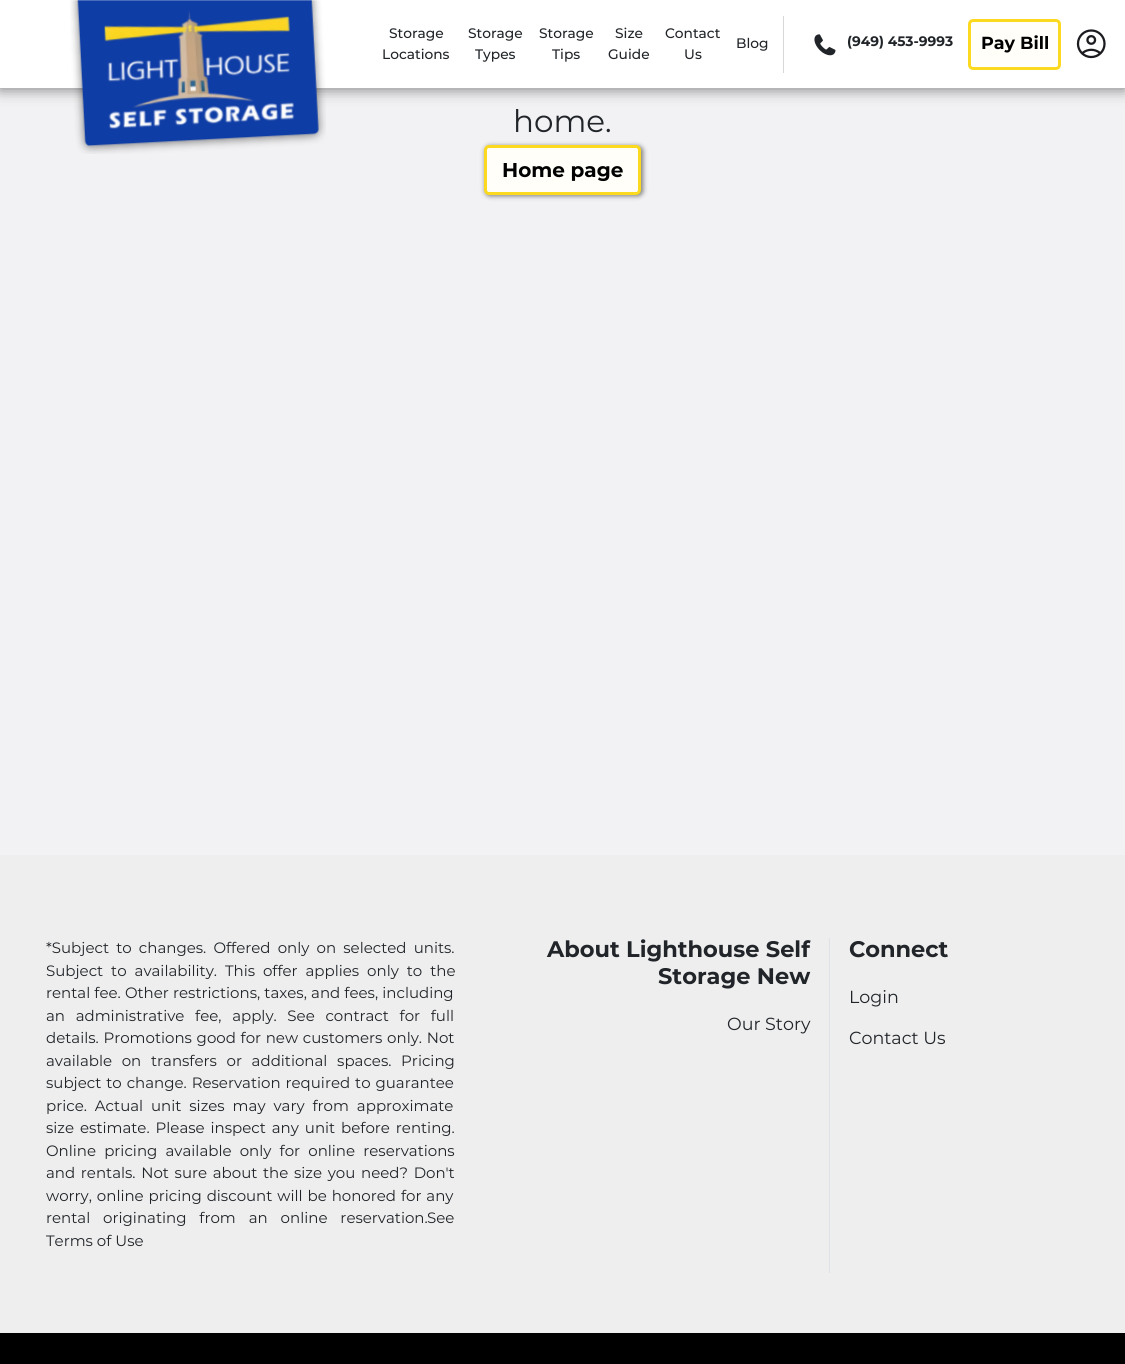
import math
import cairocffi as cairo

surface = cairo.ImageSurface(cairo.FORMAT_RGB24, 1125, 1364)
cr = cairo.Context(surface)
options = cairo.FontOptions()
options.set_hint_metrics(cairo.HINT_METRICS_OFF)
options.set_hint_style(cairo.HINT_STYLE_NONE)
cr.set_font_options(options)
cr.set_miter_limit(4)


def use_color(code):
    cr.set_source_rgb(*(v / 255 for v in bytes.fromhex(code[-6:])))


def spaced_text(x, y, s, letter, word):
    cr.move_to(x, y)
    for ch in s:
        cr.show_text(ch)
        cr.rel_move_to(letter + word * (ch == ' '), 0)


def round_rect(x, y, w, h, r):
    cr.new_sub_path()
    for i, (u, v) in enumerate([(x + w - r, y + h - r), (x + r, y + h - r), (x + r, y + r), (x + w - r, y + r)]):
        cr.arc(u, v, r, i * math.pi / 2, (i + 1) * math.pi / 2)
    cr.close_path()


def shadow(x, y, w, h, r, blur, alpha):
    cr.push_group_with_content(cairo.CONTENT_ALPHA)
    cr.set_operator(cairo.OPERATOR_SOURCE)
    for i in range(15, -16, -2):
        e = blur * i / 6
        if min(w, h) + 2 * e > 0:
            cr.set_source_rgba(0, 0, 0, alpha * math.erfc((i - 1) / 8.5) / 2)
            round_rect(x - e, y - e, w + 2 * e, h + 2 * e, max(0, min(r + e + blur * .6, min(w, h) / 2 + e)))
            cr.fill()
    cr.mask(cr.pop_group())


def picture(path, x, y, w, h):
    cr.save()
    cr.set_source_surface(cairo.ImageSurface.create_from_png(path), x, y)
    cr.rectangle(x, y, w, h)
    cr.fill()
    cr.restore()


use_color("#f2f2f4")
cr.paint()
use_color("#000000")
shadow(0, 1, 1125, 88, 0, 7.5, 0.5)
use_color("#ffffff")
cr.rectangle(0, 0, 1125, 88)
cr.fill()
picture("img1.png", 70, 0, 256, 154)
cr.select_font_face("Montserrat Medium")
cr.set_font_size(13.75)
use_color("#212529")
cr.move_to(389, 38)
cr.show_text("Storage")
cr.move_to(382, 59)
cr.show_text("Locations")
cr.move_to(468, 38)
cr.show_text("Storage")
cr.move_to(475, 59)
cr.show_text("Types")
cr.move_to(539, 38)
cr.show_text("Storage")
cr.move_to(552, 59)
cr.show_text("Tips")
cr.move_to(615, 38)
cr.show_text("Size")
cr.move_to(608, 59)
cr.show_text("Guide")
cr.move_to(665, 38)
cr.show_text("Contact")
cr.move_to(684, 59)
cr.show_text("Us")
cr.move_to(736, 48)
cr.show_text("Blog")
use_color("#d8d8d8")
cr.rectangle(783, 16, 1, 57)
cr.fill()
picture("img2.png", 814, 34, 22, 22)
cr.select_font_face("Montserrat", cairo.FONT_SLANT_NORMAL, cairo.FONT_WEIGHT_BOLD)
use_color("#212529")
cr.move_to(847, 46)
cr.show_text("(949) 453-9993")
use_color("#fffef8")
round_rect(969.5, 20.5, 90, 48, 3.5)
cr.fill_preserve()
use_color("#fbd91e")
cr.set_line_width(3)
cr.stroke()
cr.set_font_size(17.5)
use_color("#010101")
cr.move_to(981, 49)
cr.show_text("Pay Bill")
picture("img3.png", 1076, 29, 30, 30)
cr.select_font_face("Montserrat")
cr.set_font_size(31)
use_color("#212529")
cr.move_to(513, 132)
cr.show_text("home.")
use_color("#000000")
shadow(485, 146, 158, 50, 5, 2.5, 0.5)
use_color("#fffef8")
round_rect(485.5, 146.5, 154, 47, 3.5)
cr.fill_preserve()
use_color("#fbd91e")
cr.stroke()
cr.select_font_face("Montserrat", cairo.FONT_SLANT_NORMAL, cairo.FONT_WEIGHT_BOLD)
cr.set_font_size(20)
use_color("#010101")
cr.move_to(502, 177)
cr.show_text("Home page")
use_color("#eeeeee")
cr.rectangle(0, 855, 1125, 478)
cr.fill()
cr.select_font_face("Montserrat")
cr.set_font_size(15)
use_color("#212529")
spaced_text(46, 953, "*Subject to changes. Offered only on selected units.", 0, 3.25)
spaced_text(46, 976, "Subject to availability. This offer applies only to the", 0, 4)
spaced_text(46, 998, "rental fee. Other restrictions, taxes, and fees, including", 0, 0.25)
spaced_text(46, 1021, "an administrative fee, apply. See contract for full", 0, 6.75)
spaced_text(46, 1043, "details. Promotions good for new customers only. Not", 0, 0.75)
spaced_text(46, 1066, "available on transfers or additional spaces. Pricing", 0, 5.75)
spaced_text(46, 1088, "subject to change. Reservation required to guarantee", 0, 1)
spaced_text(46, 1111, "price. Actual unit sizes may vary from approximate", 0, 4)
spaced_text(46, 1133, "size estimate. Please inspect any unit before renting.", 0, 2)
spaced_text(46, 1156, "Online pricing available only for online reservations", 0, 4.25)
spaced_text(46, 1178, "and rentals. Not sure about the size you need? Don't", 0, 1.75)
spaced_text(46, 1201, "worry, online pricing discount will be honored for any", 0, 1)
spaced_text(46, 1223, "rental originating from an online reservation.", 0, 9)
cr.move_to(427, 1223)
cr.show_text("See")
cr.move_to(46, 1246)
cr.show_text("Terms of Use")
use_color("#dee2e6")
cr.rectangle(829, 938, 1, 335)
cr.fill()
cr.select_font_face("Montserrat", cairo.FONT_SLANT_NORMAL, cairo.FONT_WEIGHT_BOLD)
cr.set_font_size(22.5)
use_color("#212529")
cr.move_to(547, 957)
cr.show_text("About Lighthouse Self")
cr.move_to(658, 984)
cr.show_text("Storage New")
cr.select_font_face("Montserrat")
cr.set_font_size(17.5)
cr.move_to(727, 1030)
cr.show_text("Our Story")
cr.select_font_face("Montserrat", cairo.FONT_SLANT_NORMAL, cairo.FONT_WEIGHT_BOLD)
cr.set_font_size(22.5)
cr.move_to(849, 957)
cr.show_text("Connect")
cr.select_font_face("Montserrat")
cr.set_font_size(17.5)
cr.move_to(849, 1003)
cr.show_text("Login")
cr.move_to(849, 1044)
cr.show_text("Contact Us")
use_color("#000000")
cr.rectangle(0, 1333, 1125, 31)
cr.fill()
surface.write_to_png("result.png")
